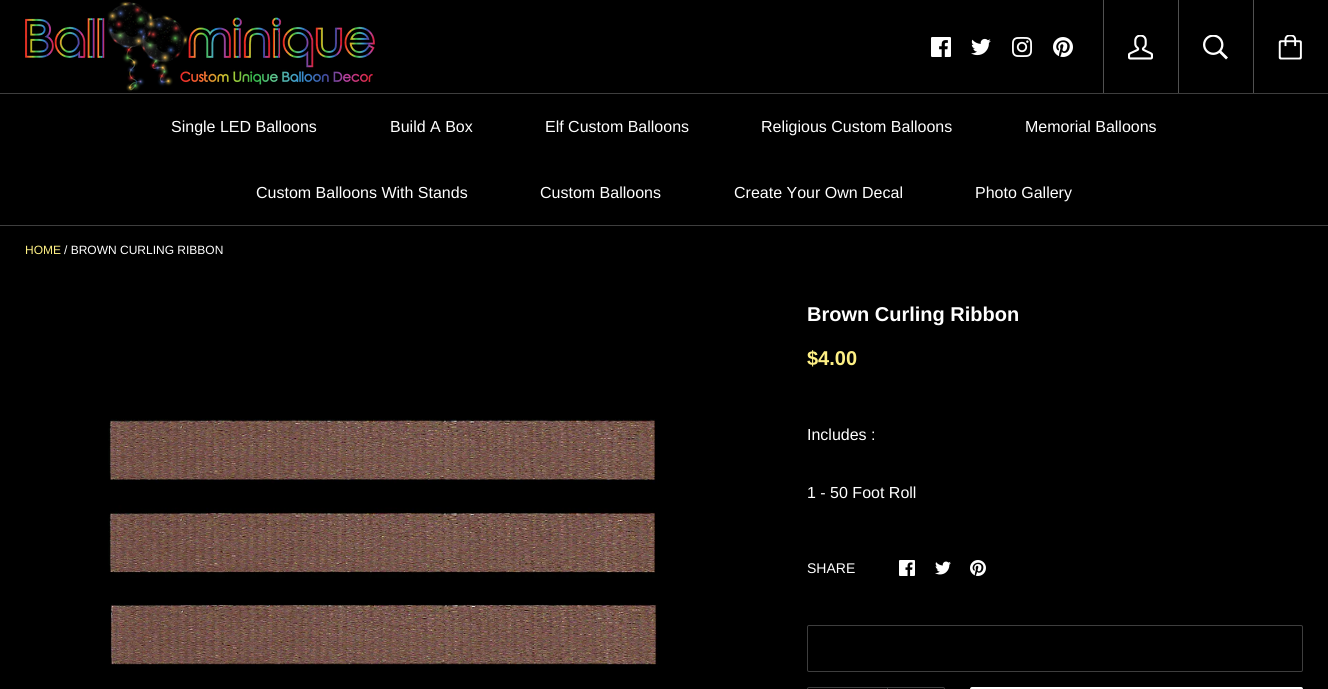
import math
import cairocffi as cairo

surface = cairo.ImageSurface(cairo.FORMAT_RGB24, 1328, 689)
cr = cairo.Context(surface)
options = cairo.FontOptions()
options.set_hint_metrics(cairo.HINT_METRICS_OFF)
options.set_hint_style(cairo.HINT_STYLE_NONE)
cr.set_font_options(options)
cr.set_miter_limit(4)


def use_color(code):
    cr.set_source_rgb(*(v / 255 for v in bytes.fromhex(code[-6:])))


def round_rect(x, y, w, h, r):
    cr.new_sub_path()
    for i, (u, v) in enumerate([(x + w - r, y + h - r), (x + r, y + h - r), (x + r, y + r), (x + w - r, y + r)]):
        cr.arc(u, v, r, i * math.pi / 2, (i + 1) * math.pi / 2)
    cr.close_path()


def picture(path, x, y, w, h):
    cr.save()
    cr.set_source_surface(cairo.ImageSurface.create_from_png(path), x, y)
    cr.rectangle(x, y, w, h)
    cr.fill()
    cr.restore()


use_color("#000000")
cr.paint()
use_color("#3e3e3e")
cr.rectangle(0, 225, 1328, 1)
cr.fill()
picture("img1.png", 25, 1, 350, 91)
picture("img2.png", 931, 37, 20, 20)
picture("img3.png", 971, 38, 20, 18)
picture("img4.png", 1012, 37, 20, 20)
picture("img5.png", 1053, 37, 20, 20)
use_color("#505050")
cr.rectangle(1103, 0, 1, 93)
cr.fill()
picture("img6.png", 1128, 35, 25, 25)
cr.rectangle(1178, 0, 1, 93)
cr.fill()
picture("img7.png", 1203, 35, 25, 25)
cr.rectangle(1253, 0, 1, 93)
cr.fill()
picture("img8.png", 1278, 35, 24, 25)
use_color("#3e3e3e")
cr.rectangle(0, 93, 1328, 1)
cr.fill()
cr.select_font_face("Liberation Sans")
cr.set_font_size(16)
use_color("#ffffff")
cr.move_to(171, 132)
cr.show_text("Single LED Balloons")
cr.move_to(390, 132)
cr.show_text("Build A Box")
cr.move_to(545, 132)
cr.show_text("Elf Custom Balloons")
cr.move_to(761, 132)
cr.show_text("Religious Custom Balloons")
cr.move_to(1025, 132)
cr.show_text("Memorial Balloons")
cr.move_to(256, 198)
cr.show_text("Custom Balloons With Stands")
cr.move_to(540, 198)
cr.show_text("Custom Balloons")
cr.move_to(734, 198)
cr.show_text("Create Your Own Decal")
cr.move_to(975, 198)
cr.show_text("Photo Gallery")
cr.set_font_size(12)
use_color("#fef084")
cr.move_to(25, 254)
cr.show_text("HOME")
use_color("#ffffff")
cr.move_to(64, 254)
cr.show_text("/ BROWN CURLING RIBBON")
picture("img9.png", 108, 419, 550, 248)
cr.select_font_face("Liberation Sans", cairo.FONT_SLANT_NORMAL, cairo.FONT_WEIGHT_BOLD)
cr.set_font_size(20)
cr.move_to(807, 321)
cr.show_text("Brown Curling Ribbon")
use_color("#fef084")
cr.move_to(807, 365)
cr.show_text("$4.00")
cr.select_font_face("Liberation Sans")
cr.set_font_size(16)
use_color("#ffffff")
cr.move_to(807, 440)
cr.show_text("Includes :")
cr.move_to(807, 498)
cr.show_text("1 - 50 Foot Roll")
cr.set_font_size(14)
cr.move_to(807, 573)
cr.show_text("SHARE")
picture("img10.png", 899, 560, 16, 16)
picture("img11.png", 935, 561, 16, 14)
picture("img12.png", 970, 560, 16, 16)
round_rect(807.5, 625.5, 495, 46, 1.5)
use_color("#3e3e3e")
cr.set_line_width(1)
cr.stroke()
round_rect(807.5, 687.5, 137, 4, 1.5)
cr.stroke()
cr.rectangle(887, 688, 1, 1)
cr.fill()
use_color("#000000")
round_rect(888, 688, 56, 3, 2)
cr.fill()
use_color("#ffffff")
round_rect(970, 687, 333, 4, 2)
cr.fill()
surface.write_to_png("result.png")
